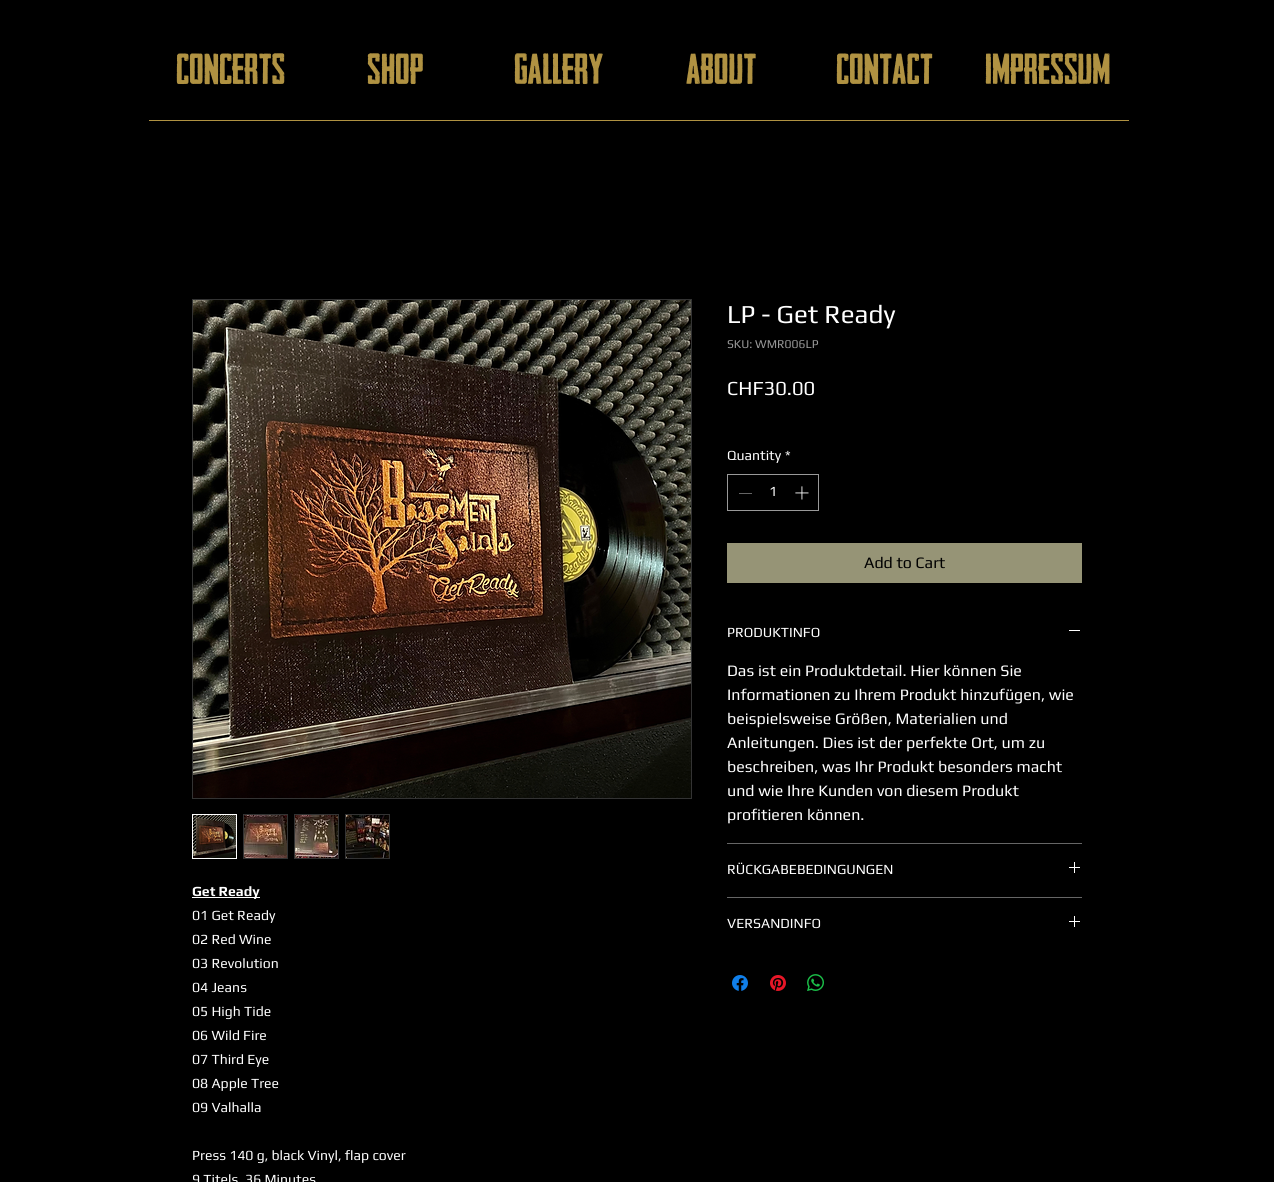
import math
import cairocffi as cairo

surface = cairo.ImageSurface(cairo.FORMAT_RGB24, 1274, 1182)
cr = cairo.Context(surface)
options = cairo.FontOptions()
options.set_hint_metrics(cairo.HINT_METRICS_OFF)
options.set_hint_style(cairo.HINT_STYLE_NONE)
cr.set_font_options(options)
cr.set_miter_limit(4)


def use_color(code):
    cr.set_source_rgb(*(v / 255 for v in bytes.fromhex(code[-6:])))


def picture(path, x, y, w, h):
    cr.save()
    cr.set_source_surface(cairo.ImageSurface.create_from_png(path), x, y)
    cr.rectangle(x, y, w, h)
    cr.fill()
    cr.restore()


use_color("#000000")
cr.paint()
cr.select_font_face("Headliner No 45")
cr.set_font_size(41)
use_color("#b09242")
cr.move_to(176, 84)
cr.show_text("CONCERTS")
cr.move_to(367, 84)
cr.show_text("SHOP")
cr.move_to(514, 84)
cr.show_text("GALLERY")
cr.move_to(686, 84)
cr.show_text("ABOUT")
cr.move_to(836, 84)
cr.show_text("CONTACT")
cr.move_to(985, 84)
cr.show_text("IMPRESSUM")
cr.rectangle(149, 120, 980, 1)
cr.fill()
cr.select_font_face("Play")
cr.set_font_size(26)
use_color("#ffffff")
cr.move_to(727, 323)
cr.show_text("LP - Get Ready")
cr.set_font_size(12)
use_color("#999999")
cr.move_to(727, 348)
cr.show_text("SKU: WMR006LP")
cr.set_font_size(20)
use_color("#ffffff")
cr.move_to(727, 395)
cr.show_text("CHF30.00")
cr.set_font_size(14)
cr.move_to(727, 460)
cr.show_text("Quantity")
cr.move_to(785, 460)
cr.show_text("*")
cr.rectangle(727.5, 474.5, 91, 36)
use_color("#999999")
cr.set_line_width(1)
cr.stroke()
use_color("#646464")
cr.rectangle(739, 493, 13, 1)
cr.fill()
use_color("#ffffff")
cr.move_to(769, 496)
cr.show_text("1")
picture("img1.png", 795, 486, 14, 14)
use_color("#969476")
cr.rectangle(727, 543, 355, 40)
cr.fill()
cr.set_font_size(16)
use_color("#000000")
cr.move_to(864, 568)
cr.show_text("Add to Cart")
use_color("#666666")
cr.rectangle(727, 843, 355, 1)
cr.fill()
cr.set_font_size(14)
use_color("#ffffff")
cr.move_to(727, 637)
cr.show_text("PRODUKTINFO")
cr.rectangle(1069, 630, 11, 1)
cr.fill()
cr.set_font_size(16)
cr.move_to(727, 676)
cr.show_text("Das ist ein Produktdetail. Hier können Sie")
cr.move_to(727, 700)
cr.show_text("Informationen zu Ihrem Produkt hinzufügen, wie")
cr.move_to(727, 724)
cr.show_text("beispielsweise Größen, Materialien und")
cr.move_to(727, 748)
cr.show_text("Anleitungen. Dies ist der perfekte Ort, um zu")
cr.move_to(727, 772)
cr.show_text("beschreiben, was Ihr Produkt besonders macht")
cr.move_to(727, 796)
cr.show_text("und wie Ihre Kunden von diesem Produkt")
cr.move_to(727, 820)
cr.show_text("profitieren können.")
use_color("#666666")
cr.rectangle(727, 897, 355, 1)
cr.fill()
cr.set_font_size(14)
use_color("#ffffff")
cr.move_to(727, 874)
cr.show_text("RÜCKGABEBEDINGUNGEN")
picture("img2.png", 1069, 862, 11, 11)
cr.move_to(727, 928)
cr.show_text("VERSANDINFO")
picture("img2.png", 1069, 916, 11, 11)
picture("img3.png", 732, 975, 16, 16)
picture("img4.png", 770, 975, 16, 16)
picture("img5.png", 807, 974, 17, 17)
cr.rectangle(192.5, 299.5, 499, 499)
use_color("#333333")
cr.stroke()
picture("img6.png", 193, 300, 498, 498)
cr.rectangle(192.5, 814.5, 44, 44)
use_color("#ffffff")
cr.stroke()
picture("img7.png", 193, 815, 43, 43)
cr.rectangle(243.5, 814.5, 44, 44)
use_color("#333333")
cr.stroke()
picture("img8.png", 244, 815, 43, 43)
cr.rectangle(294.5, 814.5, 44, 44)
cr.stroke()
picture("img9.png", 295, 815, 43, 43)
cr.rectangle(345.5, 814.5, 44, 44)
cr.stroke()
picture("img10.png", 346, 815, 43, 43)
use_color("#ffffff")
cr.rectangle(192, 897, 68, 1)
cr.fill()
cr.select_font_face("Play", cairo.FONT_SLANT_NORMAL, cairo.FONT_WEIGHT_BOLD)
cr.move_to(192, 896)
cr.show_text("Get Ready")
cr.select_font_face("Play")
cr.move_to(192, 920)
cr.show_text("01 Get Ready")
cr.move_to(192, 944)
cr.show_text("02 Red Wine")
cr.move_to(192, 968)
cr.show_text("03 Revolution")
cr.move_to(192, 992)
cr.show_text("04 Jeans")
cr.move_to(192, 1016)
cr.show_text("05 High Tide")
cr.move_to(192, 1040)
cr.show_text("06 Wild Fire")
cr.move_to(192, 1064)
cr.show_text("07 Third Eye")
cr.move_to(192, 1088)
cr.show_text("08 Apple Tree")
cr.move_to(192, 1112)
cr.show_text("09 Valhalla")
cr.move_to(192, 1160)
cr.show_text("Press 140 g, black Vinyl, flap cover")
cr.move_to(192, 1184)
cr.show_text("9 Titels, 36 Minutes")
surface.write_to_png("result.png")
